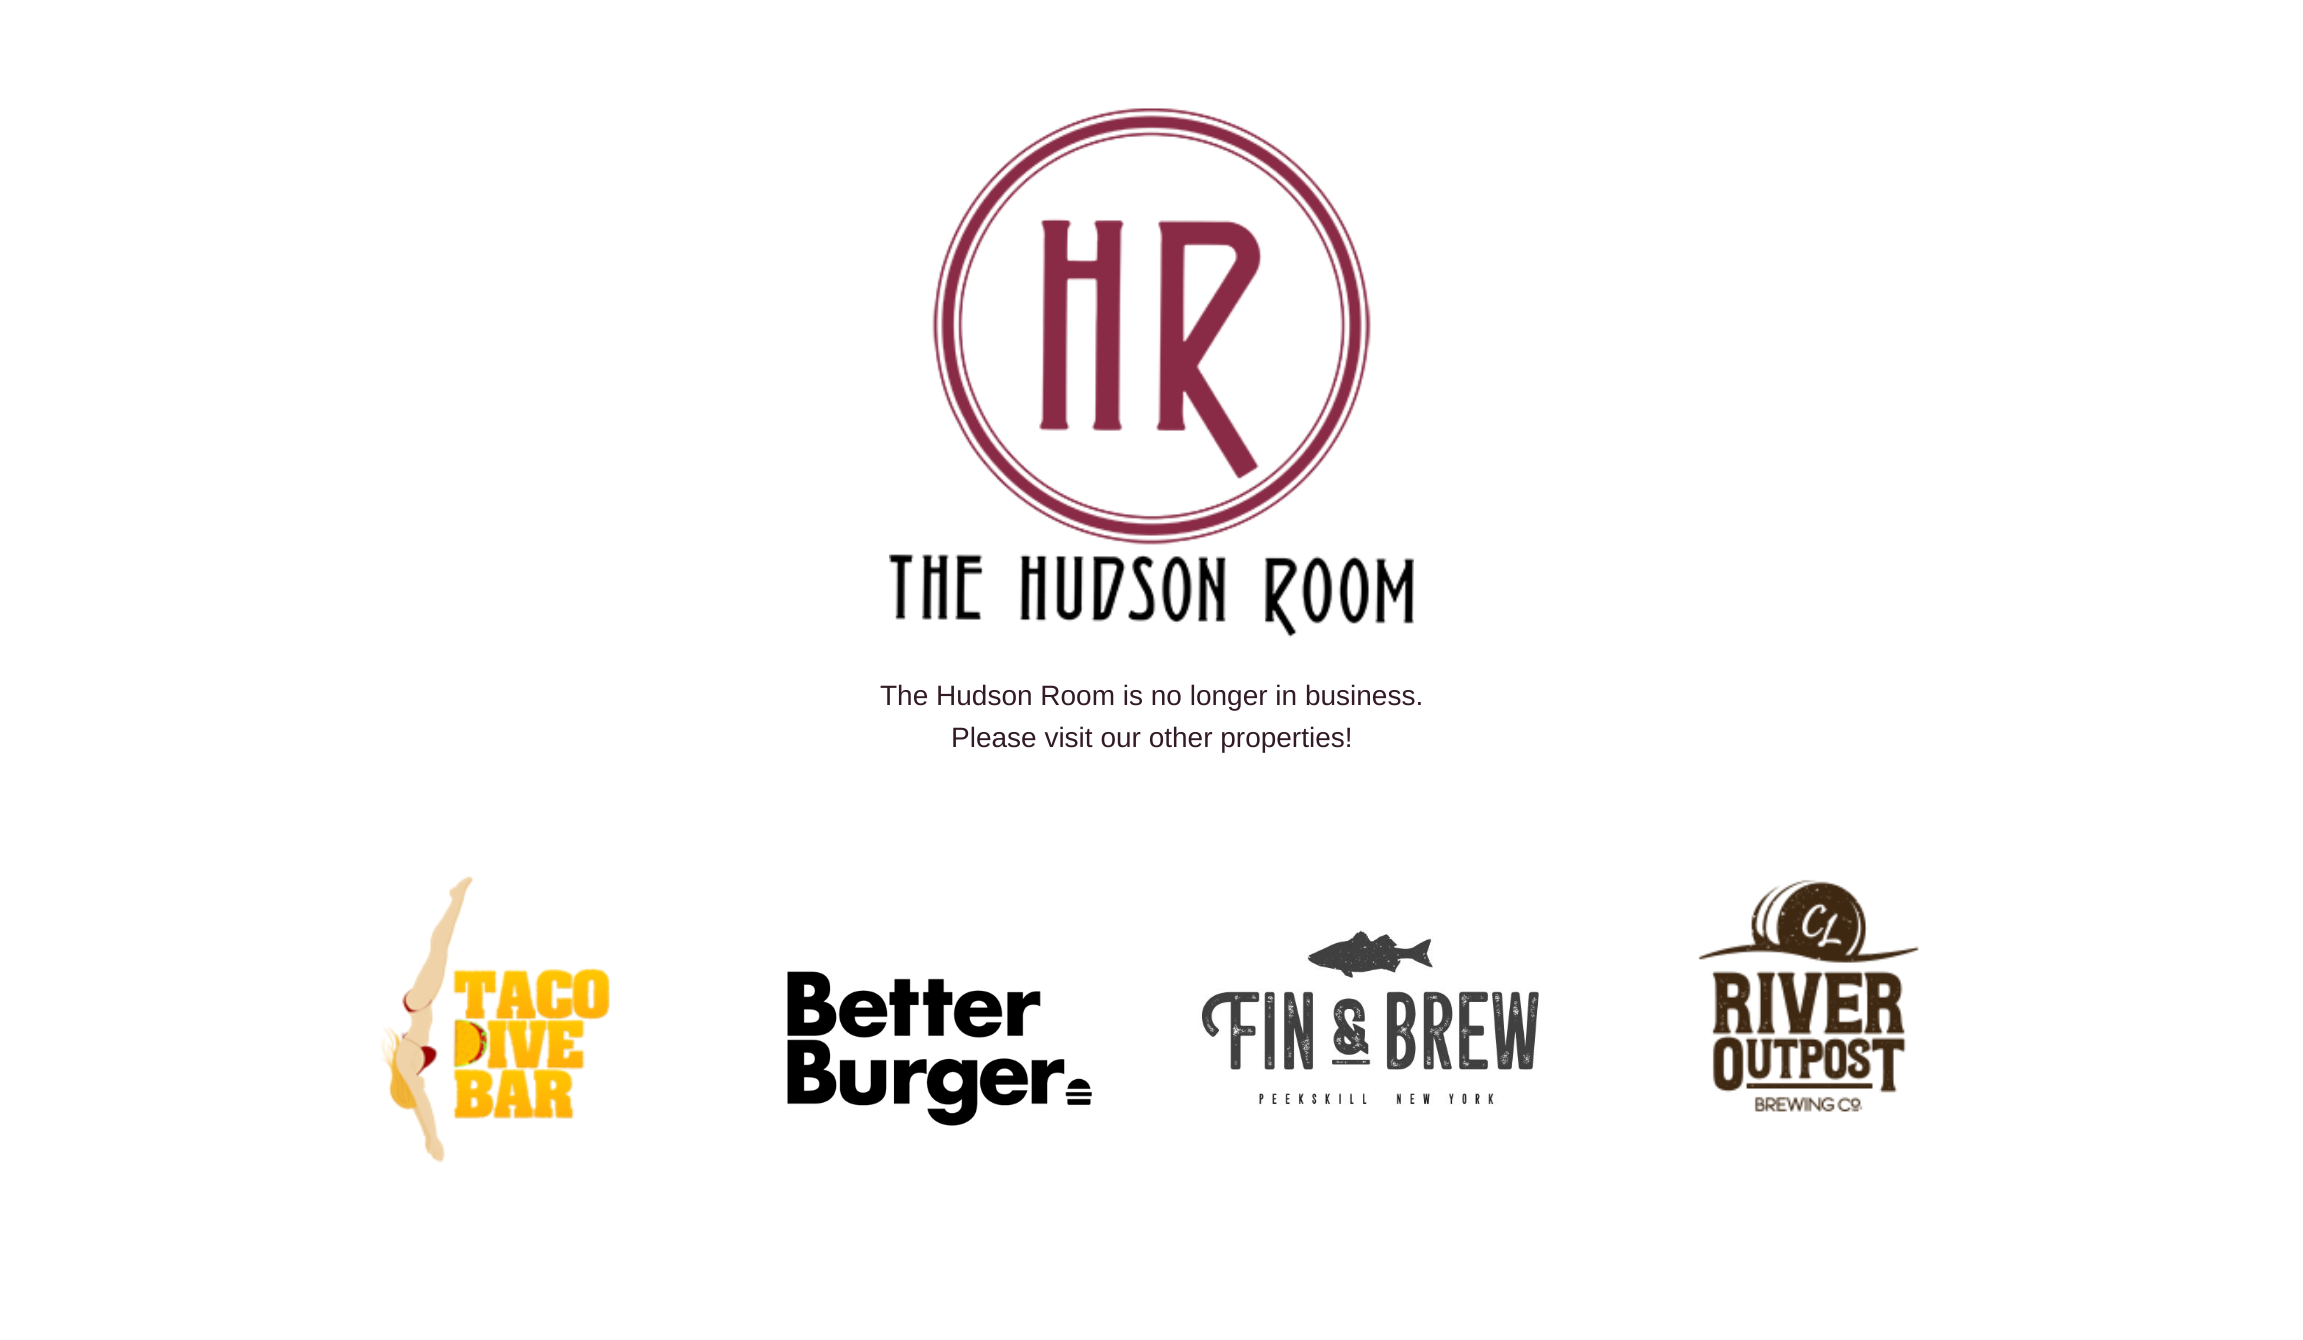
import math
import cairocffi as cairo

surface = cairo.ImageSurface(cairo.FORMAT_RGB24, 2303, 1340)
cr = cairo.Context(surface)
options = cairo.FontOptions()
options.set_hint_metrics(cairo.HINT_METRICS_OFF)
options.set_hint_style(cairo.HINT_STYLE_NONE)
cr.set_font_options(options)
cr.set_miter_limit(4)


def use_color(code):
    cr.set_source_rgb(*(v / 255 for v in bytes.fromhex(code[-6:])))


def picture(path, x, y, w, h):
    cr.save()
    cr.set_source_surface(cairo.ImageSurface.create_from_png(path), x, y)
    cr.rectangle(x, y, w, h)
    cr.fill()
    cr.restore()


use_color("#ffffff")
cr.paint()
picture("img1.png", 889, 108, 525, 530)
cr.select_font_face("Liberation Sans")
cr.set_font_size(28)
use_color("#321b26")
cr.move_to(880, 705)
cr.show_text("The Hudson Room is no longer in business.")
cr.move_to(951, 747)
cr.show_text("Please visit our other properties!")
picture("img2.png", 381, 876, 229, 287)
picture("img3.png", 787, 971, 305, 155)
picture("img4.png", 1198, 929, 341, 177)
picture("img5.png", 1698, 879, 221, 233)
surface.write_to_png("result.png")
